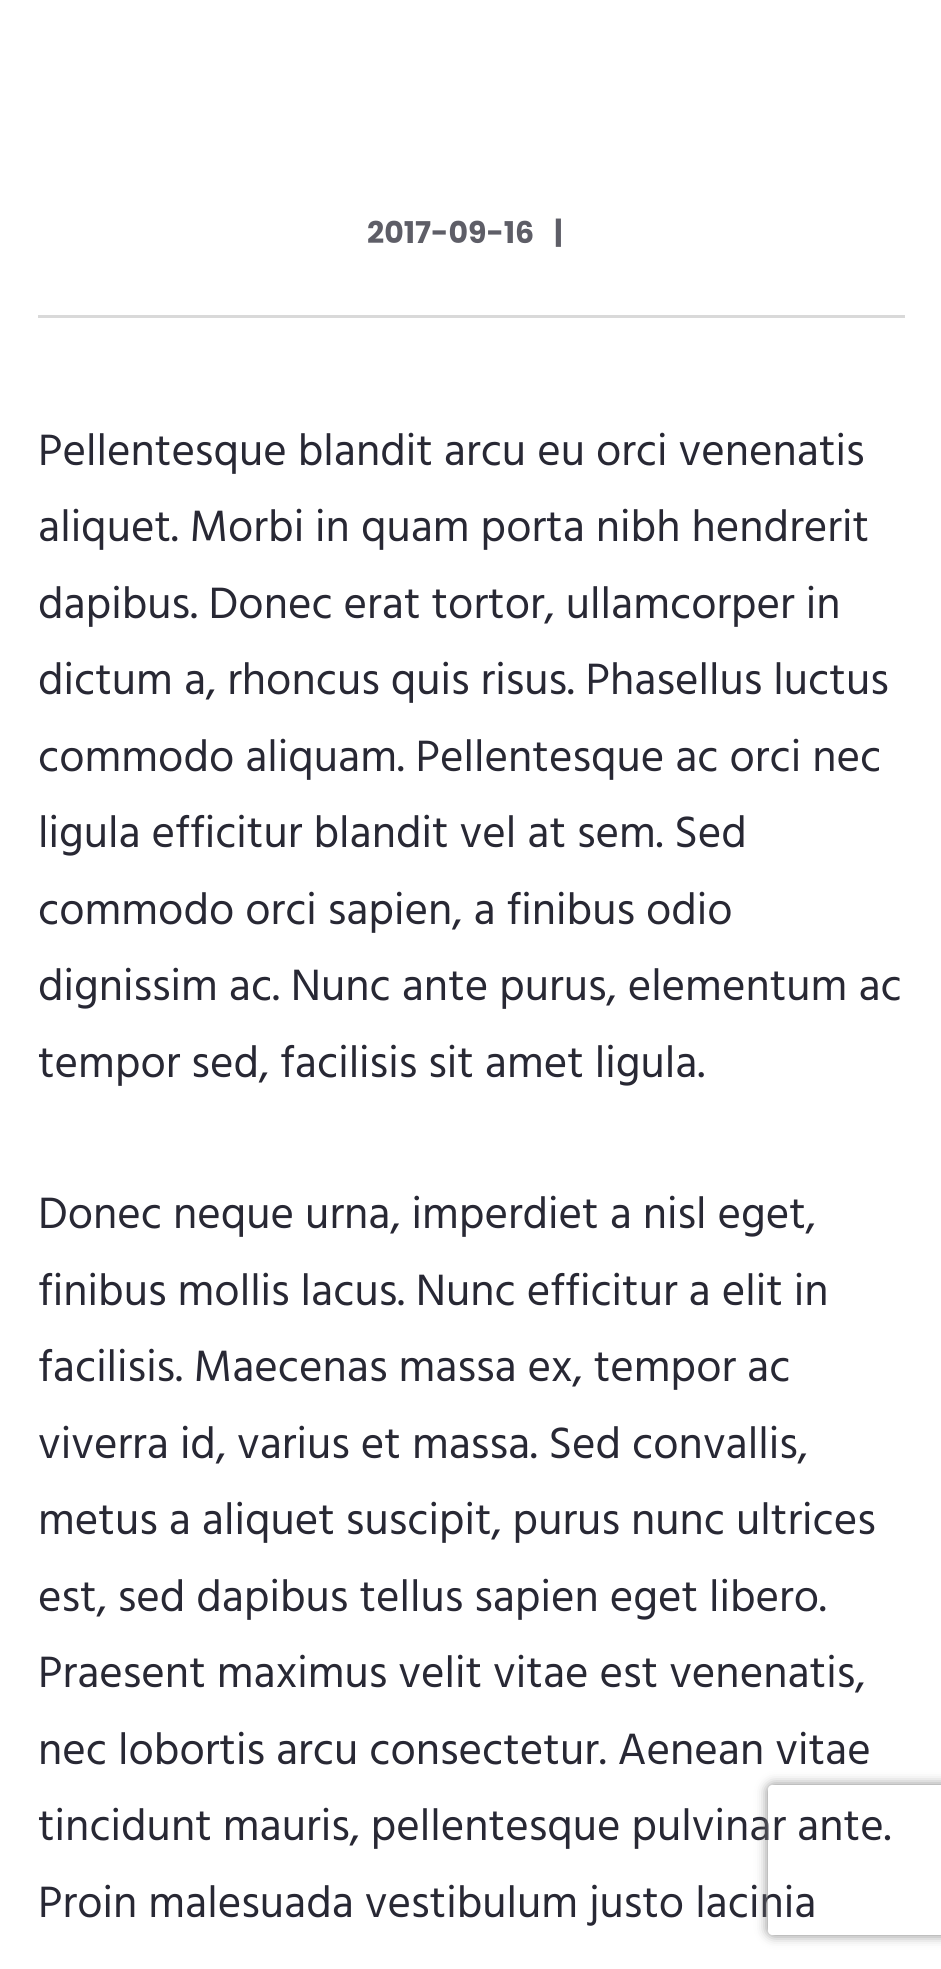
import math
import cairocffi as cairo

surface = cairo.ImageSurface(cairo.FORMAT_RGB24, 941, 1969)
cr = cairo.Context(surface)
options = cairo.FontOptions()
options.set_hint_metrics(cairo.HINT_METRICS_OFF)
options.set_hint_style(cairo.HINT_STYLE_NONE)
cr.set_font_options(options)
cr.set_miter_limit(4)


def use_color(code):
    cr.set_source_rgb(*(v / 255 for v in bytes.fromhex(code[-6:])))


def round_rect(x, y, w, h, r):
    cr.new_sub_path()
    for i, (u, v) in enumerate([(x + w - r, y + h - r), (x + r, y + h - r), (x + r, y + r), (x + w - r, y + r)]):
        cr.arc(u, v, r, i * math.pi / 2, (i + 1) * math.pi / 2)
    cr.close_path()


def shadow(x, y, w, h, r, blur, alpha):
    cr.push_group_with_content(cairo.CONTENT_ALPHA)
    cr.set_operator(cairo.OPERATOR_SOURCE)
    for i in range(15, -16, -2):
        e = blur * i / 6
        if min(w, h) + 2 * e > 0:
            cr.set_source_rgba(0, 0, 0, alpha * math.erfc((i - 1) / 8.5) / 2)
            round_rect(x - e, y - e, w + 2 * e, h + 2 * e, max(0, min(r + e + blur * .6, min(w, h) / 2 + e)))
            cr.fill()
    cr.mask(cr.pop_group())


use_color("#ffffff")
cr.paint()
use_color("#d9d9d9")
cr.rectangle(38, 315, 867, 3)
cr.fill()
cr.select_font_face("Poppins", cairo.FONT_SLANT_NORMAL, cairo.FONT_WEIGHT_BOLD)
cr.set_font_size(30)
use_color("#5e5e67")
cr.move_to(367, 243)
cr.show_text("2017-09-16")
cr.move_to(554, 243)
cr.show_text("|")
cr.select_font_face("Hind")
cr.set_font_size(45)
use_color("#282834")
cr.move_to(38, 465)
cr.show_text("Pellentesque blandit arcu eu orci venenatis")
cr.move_to(38, 541)
cr.show_text("aliquet. Morbi in quam porta nibh hendrerit")
cr.move_to(38, 618)
cr.show_text("dapibus. Donec erat tortor, ullamcorper in")
cr.move_to(38, 694)
cr.show_text("dictum a, rhoncus quis risus. Phasellus luctus")
cr.move_to(38, 771)
cr.show_text("commodo aliquam. Pellentesque ac orci nec")
cr.move_to(38, 847)
cr.show_text("ligula efficitur blandit vel at sem. Sed")
cr.move_to(38, 924)
cr.show_text("commodo orci sapien, a finibus odio")
cr.move_to(38, 1000)
cr.show_text("dignissim ac. Nunc ante purus, elementum ac")
cr.move_to(38, 1077)
cr.show_text("tempor sed, facilisis sit amet ligula.")
cr.move_to(38, 1228)
cr.show_text("Donec neque urna, imperdiet a nisl eget,")
cr.move_to(38, 1305)
cr.show_text("finibus mollis lacus. Nunc efficitur a elit in")
cr.move_to(38, 1381)
cr.show_text("facilisis. Maecenas massa ex, tempor ac")
cr.move_to(38, 1458)
cr.show_text("viverra id, varius et massa. Sed convallis,")
cr.move_to(38, 1534)
cr.show_text("metus a aliquet suscipit, purus nunc ultrices")
cr.move_to(38, 1611)
cr.show_text("est, sed dapibus tellus sapien eget libero.")
cr.move_to(38, 1687)
cr.show_text("Praesent maximus velit vitae est venenatis,")
cr.move_to(38, 1764)
cr.show_text("nec lobortis arcu consectetur. Aenean vitae")
cr.move_to(38, 1840)
cr.show_text("tincidunt mauris, pellentesque pulvinar ante.")
cr.move_to(38, 1917)
cr.show_text("Proin malesuada vestibulum justo lacinia")
cr.save()
cr.set_fill_rule(cairo.FILL_RULE_EVEN_ODD)
cr.new_path()
cr.move_to(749, 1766)
cr.line_to(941, 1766)
cr.line_to(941, 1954)
cr.line_to(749, 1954)
cr.close_path()
cr.move_to(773, 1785)
cr.line_to(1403, 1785)
cr.curve_to(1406, 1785, 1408, 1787, 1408, 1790)
cr.line_to(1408, 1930)
cr.curve_to(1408, 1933, 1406, 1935, 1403, 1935)
cr.line_to(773, 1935)
cr.curve_to(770, 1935, 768, 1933, 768, 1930)
cr.line_to(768, 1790)
cr.curve_to(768, 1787, 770, 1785, 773, 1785)
cr.close_path()
cr.clip()
use_color("#808080")
shadow(768, 1785, 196, 150, 5, 6, 1)
cr.restore()
surface.write_to_png("result.png")
